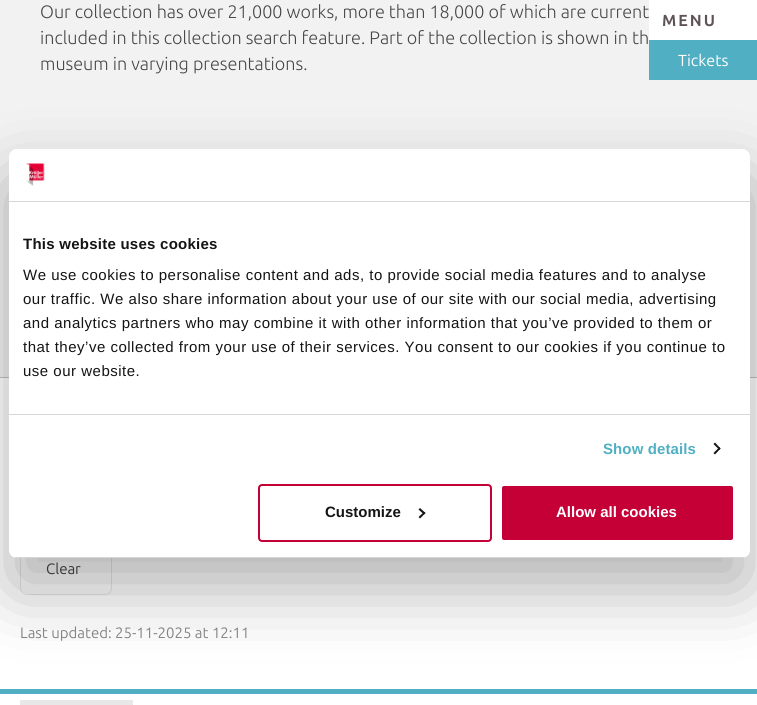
import math
import cairocffi as cairo

surface = cairo.ImageSurface(cairo.FORMAT_RGB24, 757, 705)
cr = cairo.Context(surface)
options = cairo.FontOptions()
options.set_hint_metrics(cairo.HINT_METRICS_OFF)
options.set_hint_style(cairo.HINT_STYLE_NONE)
cr.set_font_options(options)
cr.set_miter_limit(4)


def use_color(code):
    cr.set_source_rgb(*(v / 255 for v in bytes.fromhex(code[-6:])))


def spaced_text(x, y, s, letter, word):
    cr.move_to(x, y)
    for ch in s:
        cr.show_text(ch)
        cr.rel_move_to(letter + word * (ch == ' '), 0)


def round_rect(x, y, w, h, r):
    cr.new_sub_path()
    for i, (u, v) in enumerate([(x + w - r, y + h - r), (x + r, y + h - r), (x + r, y + r), (x + w - r, y + r)]):
        cr.arc(u, v, r, i * math.pi / 2, (i + 1) * math.pi / 2)
    cr.close_path()


def shadow(x, y, w, h, r, blur, alpha):
    cr.push_group_with_content(cairo.CONTENT_ALPHA)
    cr.set_operator(cairo.OPERATOR_SOURCE)
    for i in range(15, -16, -2):
        e = blur * i / 6
        if min(w, h) + 2 * e > 0:
            cr.set_source_rgba(0, 0, 0, alpha * math.erfc((i - 1) / 8.5) / 2)
            round_rect(x - e, y - e, w + 2 * e, h + 2 * e, max(0, min(r + e + blur * .6, min(w, h) / 2 + e)))
            cr.fill()
    cr.mask(cr.pop_group())


def picture(path, x, y, w, h):
    cr.save()
    cr.set_source_surface(cairo.ImageSurface.create_from_png(path), x, y)
    cr.rectangle(x, y, w, h)
    cr.fill()
    cr.restore()


use_color("#ffffff")
cr.paint()
use_color("#f2f2f2")
cr.rectangle(0, 0, 757, 377)
cr.fill()
use_color("#c2c2c2")
cr.rectangle(0, 377, 757, 1)
cr.fill()
cr.select_font_face("Ubuntu Light")
cr.set_font_size(18)
use_color("#444444")
cr.move_to(40, 18)
cr.show_text("Our collection has over 21,000 works, more than 18,000 of which are current")
cr.move_to(40, 44)
cr.show_text("included in this collection search feature. Part of the collection is shown in th")
cr.move_to(40, 70)
cr.show_text("museum in varying presentations.")
round_rect(20.5, 543.5, 91, 51, 6.5)
use_color("#e8e8e8")
cr.set_line_width(1)
cr.stroke()
cr.select_font_face("Ubuntu")
cr.set_font_size(15)
use_color("#444444")
cr.move_to(46, 574)
cr.show_text("Clear")
use_color("#888888")
cr.move_to(20, 638)
cr.show_text("Last updated: 25-11-2025 at 12:11")
use_color("#50afc3")
cr.rectangle(649, 40, 108, 40)
cr.fill()
cr.set_font_size(16)
use_color("#ffffff")
cr.move_to(678, 66)
cr.show_text("Tickets")
use_color("#50afc3")
cr.rectangle(0, 689, 757, 5)
cr.fill()
use_color("#e8e8e8")
cr.rectangle(20, 700, 113, 5)
cr.fill()
use_color("#ffffff")
cr.rectangle(649, 0, 108, 40)
cr.fill()
cr.select_font_face("Ubuntu", cairo.FONT_SLANT_NORMAL, cairo.FONT_WEIGHT_BOLD)
use_color("#5e5258")
spaced_text(662, 26, "MENU", 2, 0)
use_color("#000000")
shadow(9, 181, 741, 409, 8, 34, 0.3)
use_color("#ffffff")
round_rect(9, 149, 741, 409, 8)
cr.fill()
use_color("#d6d6d6")
cr.rectangle(9, 201, 741, 1)
cr.fill()
picture("img1.png", 26, 163, 19, 23)
cr.rectangle(9, 414, 741, 1)
cr.fill()
cr.select_font_face("Liberation Sans", cairo.FONT_SLANT_NORMAL, cairo.FONT_WEIGHT_BOLD)
cr.set_font_size(15)
use_color("#141414")
spaced_text(23, 249, "This website uses cookies", 0.25, 0)
cr.select_font_face("Liberation Sans")
spaced_text(23, 280, "We use cookies to personalise content and ads, to provide social media features and to analyse", 0.5, 0)
spaced_text(23, 304, "our traffic. We also share information about your use of our site with our social media, advertising", 0.5, 0)
spaced_text(23, 328, "and analytics partners who may combine it with other information that you’ve provided to them or", 0.5, 0)
spaced_text(23, 352, "that they’ve collected from your use of their services. You consent to our cookies if you continue to", 0.5, 0)
spaced_text(23, 376, "use our website.", 0.5, 0)
cr.select_font_face("Liberation Sans", cairo.FONT_SLANT_NORMAL, cairo.FONT_WEIGHT_BOLD)
use_color("#50afc3")
spaced_text(603, 454, "Show details", 0.1, 0)
use_color("#141414")
cr.new_path()
cr.move_to(715, 442.5)
cr.line_to(720.5, 448.5)
cr.line_to(719.5, 450)
cr.line_to(713.5, 444)
cr.close_path()
cr.fill()
cr.new_path()
cr.move_to(719.5, 447)
cr.line_to(720.5, 448.5)
cr.line_to(715, 454.5)
cr.line_to(713.5, 453)
cr.close_path()
cr.fill()
cr.save()
round_rect(9, 149, 741, 409, 8)
cr.clip()
use_color("#d6d6d6")
cr.rectangle(9, 557, 741, 1)
cr.fill()
cr.restore()
round_rect(259, 485, 232, 56, 3)
use_color("#c40037")
cr.set_line_width(2)
cr.stroke()
use_color("#141414")
cr.move_to(325, 517)
cr.show_text("Customize")
cr.new_path()
cr.move_to(420, 508)
cr.line_to(425.5, 513)
cr.line_to(424, 514.5)
cr.line_to(418.5, 509.5)
cr.close_path()
cr.fill()
cr.new_path()
cr.move_to(424, 512)
cr.line_to(425.5, 513)
cr.line_to(420, 518.5)
cr.line_to(418.5, 517)
cr.close_path()
cr.fill()
use_color("#c40037")
round_rect(501, 485, 233, 56, 3)
cr.fill_preserve()
use_color("#ffffff")
cr.stroke()
cr.move_to(556, 517)
cr.show_text("Allow all cookies")
surface.write_to_png("result.png")
